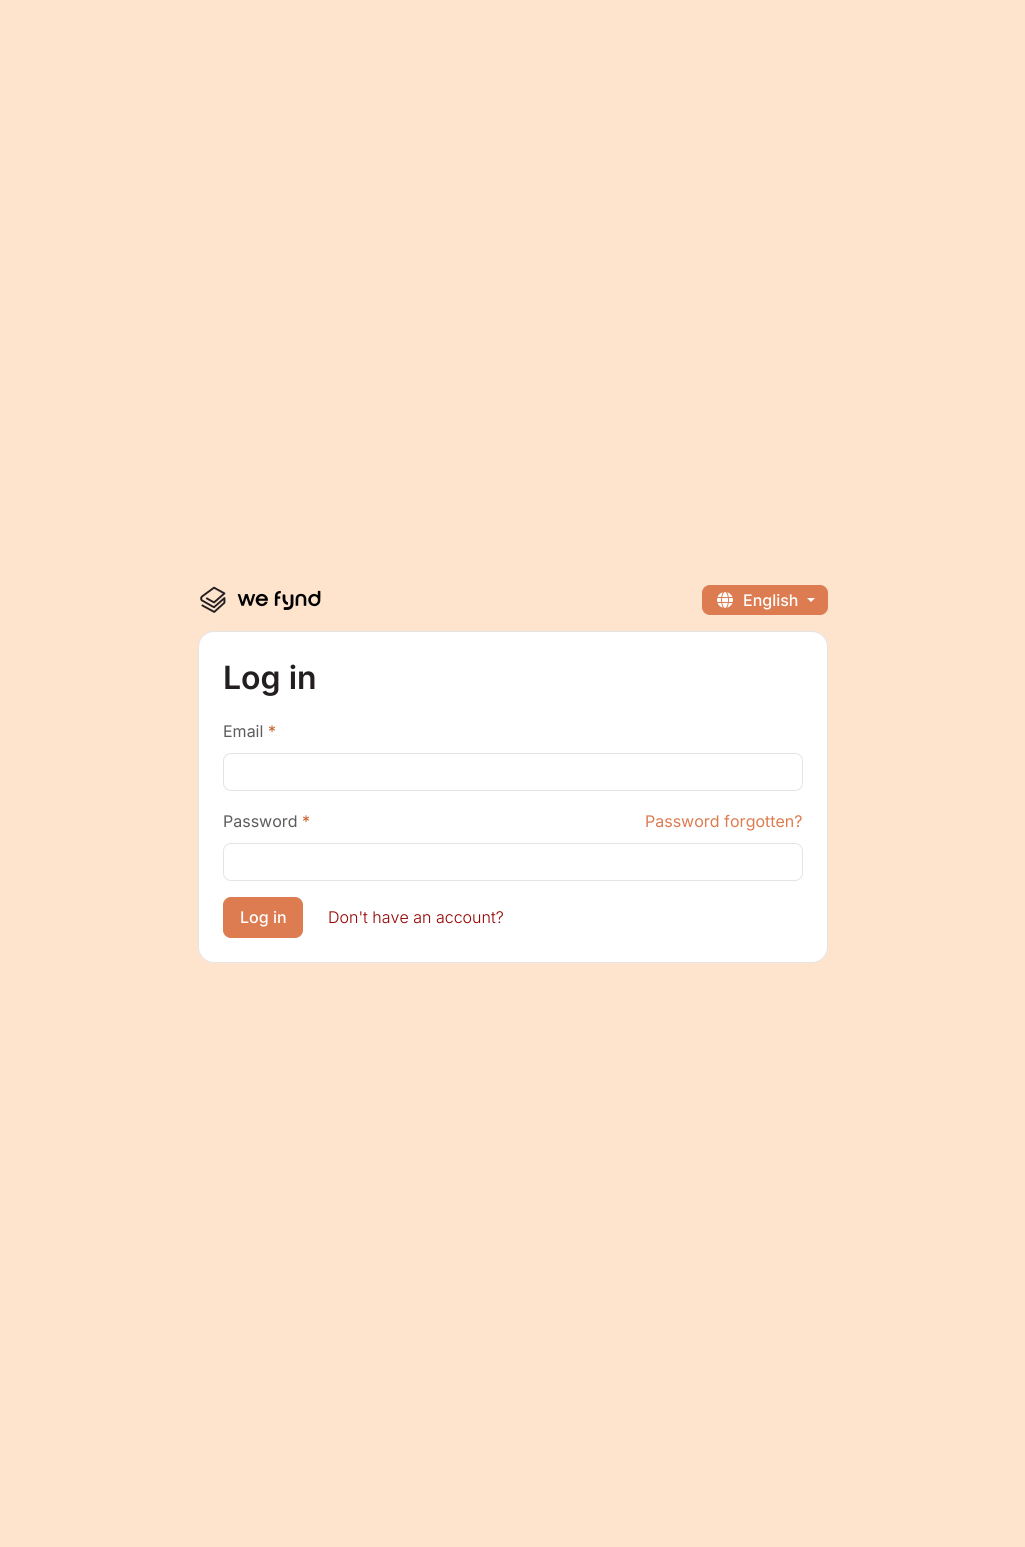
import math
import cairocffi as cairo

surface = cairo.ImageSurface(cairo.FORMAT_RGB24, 1025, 1547)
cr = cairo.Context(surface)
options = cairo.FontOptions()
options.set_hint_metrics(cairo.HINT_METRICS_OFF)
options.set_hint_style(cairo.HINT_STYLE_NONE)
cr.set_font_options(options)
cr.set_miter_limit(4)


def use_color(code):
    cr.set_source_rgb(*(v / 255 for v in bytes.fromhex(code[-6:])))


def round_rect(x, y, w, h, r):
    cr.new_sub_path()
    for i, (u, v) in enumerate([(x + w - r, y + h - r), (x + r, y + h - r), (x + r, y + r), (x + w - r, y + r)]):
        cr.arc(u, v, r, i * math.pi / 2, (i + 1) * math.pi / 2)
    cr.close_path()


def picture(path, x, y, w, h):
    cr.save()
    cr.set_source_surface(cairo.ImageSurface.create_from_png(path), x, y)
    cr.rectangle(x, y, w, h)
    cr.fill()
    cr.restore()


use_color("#ffe4cd")
cr.paint()
picture("img1.png", 200, 586, 121, 27)
use_color("#dc7c50")
round_rect(702.5, 585.5, 125, 29, 7.5)
cr.fill_preserve()
cr.set_line_width(1)
cr.stroke()
picture("img2.png", 717, 592, 16, 16)
cr.select_font_face("Inter Medium")
cr.set_font_size(16)
use_color("#ffffff")
cr.move_to(743, 606)
cr.show_text("English")
cr.new_path()
cr.move_to(807, 598)
cr.line_to(815, 598)
cr.line_to(811, 602)
cr.close_path()
cr.fill()
round_rect(198.5, 631.5, 629, 331, 15.5)
cr.fill_preserve()
use_color("#e5e4e4")
cr.stroke()
cr.select_font_face("Inter SemiBold")
cr.set_font_size(32)
use_color("#231f20")
cr.move_to(223, 689)
cr.show_text("Log in")
cr.select_font_face("Inter")
cr.set_font_size(16)
use_color("#5c5c5c")
cr.move_to(223, 737)
cr.show_text("Email")
use_color("#cb5d2b")
cr.move_to(268, 737)
cr.show_text("*")
round_rect(223.5, 753.5, 579, 37, 7.5)
use_color("#e5e4e4")
cr.stroke()
use_color("#5c5c5c")
cr.move_to(223, 827)
cr.show_text("Password")
use_color("#cb5d2b")
cr.move_to(302, 827)
cr.show_text("*")
use_color("#dc7c50")
cr.move_to(645, 827)
cr.show_text("Password forgotten?")
round_rect(223.5, 843.5, 579, 37, 7.5)
use_color("#e5e4e4")
cr.stroke()
use_color("#dc7c50")
round_rect(223.5, 897.5, 79, 40, 7.5)
cr.fill_preserve()
cr.stroke()
cr.select_font_face("Inter Medium")
use_color("#ffffff")
cr.move_to(240, 923)
cr.show_text("Log in")
cr.select_font_face("Inter Light")
use_color("#930000")
cr.move_to(328, 923)
cr.show_text("Don't have an account?")
surface.write_to_png("result.png")
